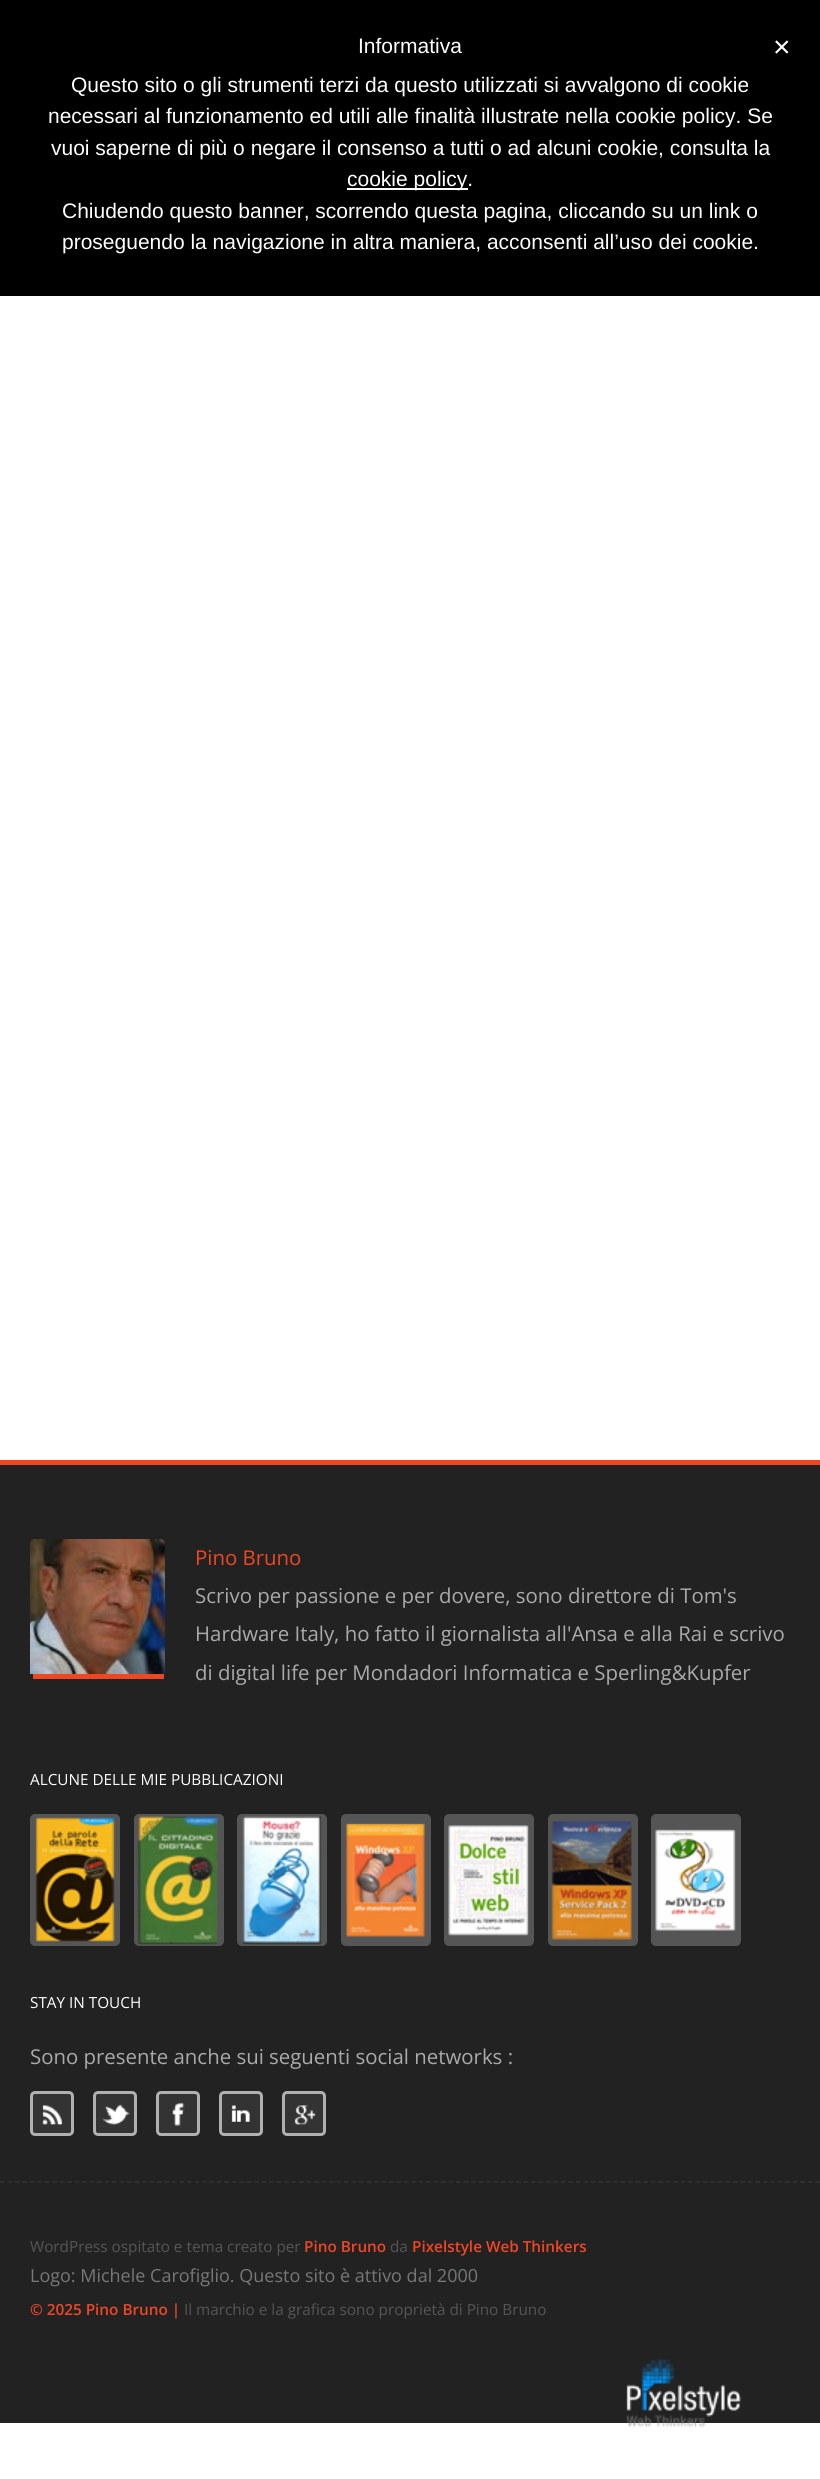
import math
import cairocffi as cairo

surface = cairo.ImageSurface(cairo.FORMAT_RGB24, 820, 2479)
cr = cairo.Context(surface)
options = cairo.FontOptions()
options.set_hint_metrics(cairo.HINT_METRICS_OFF)
options.set_hint_style(cairo.HINT_STYLE_NONE)
cr.set_font_options(options)
cr.set_miter_limit(4)


def use_color(code):
    cr.set_source_rgb(*(v / 255 for v in bytes.fromhex(code[-6:])))


def round_rect(x, y, w, h, r):
    cr.new_sub_path()
    for i, (u, v) in enumerate([(x + w - r, y + h - r), (x + r, y + h - r), (x + r, y + r), (x + w - r, y + r)]):
        cr.arc(u, v, r, i * math.pi / 2, (i + 1) * math.pi / 2)
    cr.close_path()


def picture(path, x, y, w, h):
    cr.save()
    cr.set_source_surface(cairo.ImageSurface.create_from_png(path), x, y)
    cr.rectangle(x, y, w, h)
    cr.fill()
    cr.restore()


use_color("#ffffff")
cr.paint()
use_color("#000000")
cr.rectangle(0, 0, 820, 296)
cr.fill()
cr.select_font_face("Liberation Sans")
cr.set_font_size(21)
use_color("#ffffff")
cr.move_to(358, 53)
cr.show_text("Informativa")
cr.move_to(71, 92)
cr.show_text("Questo sito o gli strumenti terzi da questo utilizzati si avvalgono di cookie")
cr.move_to(48, 123)
cr.show_text("necessari al funzionamento ed utili alle finalità illustrate nella cookie policy. Se")
cr.move_to(51, 155)
cr.show_text("vuoi saperne di più o negare il consenso a tutti o ad alcuni cookie, consulta la")
cr.rectangle(347, 188, 121, 2)
cr.fill()
cr.move_to(347, 186)
cr.show_text("cookie policy.")
cr.move_to(62, 218)
cr.show_text("Chiudendo questo banner, scorrendo questa pagina, cliccando su un link o")
cr.move_to(62, 249)
cr.show_text("proseguendo la navigazione in altra maniera, acconsenti all’uso dei cookie.")
cr.set_font_size(30)
cr.move_to(773, 57)
cr.show_text("×")
use_color("#ef4723")
cr.rectangle(0, 1460, 820, 5)
cr.fill()
use_color("#222222")
cr.rectangle(0, 1465, 820, 958)
cr.fill()
picture("img1.png", 30, 1539, 135, 135)
use_color("#ef4723")
cr.rectangle(33, 1674, 131, 5)
cr.fill()
cr.select_font_face("Open Sans")
cr.set_font_size(20.4)
cr.move_to(195, 1565)
cr.show_text("Pino Bruno")
use_color("#aaaaaa")
cr.move_to(195, 1603)
cr.show_text("Scrivo per passione e per dovere, sono direttore di Tom's")
cr.move_to(195, 1641)
cr.show_text("Hardware Italy, ho fatto il giornalista all'Ansa e alla Rai e scrivo")
cr.move_to(195, 1680)
cr.show_text("di digital life per Mondadori Informatica e Sperling&Kupfer")
cr.set_font_size(15.3)
use_color("#ffffff")
cr.move_to(30, 1785)
cr.show_text("ALCUNE DELLE MIE PUBBLICAZIONI")
use_color("#555555")
round_rect(30, 1814, 90, 132, 5)
cr.fill()
picture("img2.png", 35, 1817, 80, 125)
round_rect(134, 1814, 90, 132, 5)
cr.fill()
picture("img3.png", 137, 1816, 81, 129)
round_rect(237, 1814, 90, 132, 5)
cr.fill()
picture("img4.png", 242, 1816, 80, 129)
round_rect(341, 1814, 90, 132, 5)
cr.fill()
picture("img5.png", 346, 1823, 79, 114)
round_rect(444, 1814, 90, 132, 5)
cr.fill()
picture("img6.png", 448, 1825, 81, 111)
round_rect(548, 1814, 90, 132, 5)
cr.fill()
picture("img7.png", 551, 1821, 81, 119)
round_rect(651, 1814, 90, 132, 5)
cr.fill()
picture("img8.png", 655, 1829, 81, 102)
use_color("#ffffff")
cr.move_to(30, 2008)
cr.show_text("STAY IN TOUCH")
cr.set_font_size(20.4)
use_color("#aaaaaa")
cr.move_to(30, 2064)
cr.show_text("Sono presente anche sui seguenti social networks :")
use_color("#333333")
round_rect(30, 2091, 44, 45, 5)
cr.fill()
round_rect(31.5, 2092.5, 41, 42, 3.5)
cr.set_source_rgba(0.902, 0.902, 0.902, 0.7)
cr.set_line_width(3)
cr.stroke()
picture("img9.png", 42, 2105, 21, 20)
use_color("#333333")
round_rect(93, 2091, 44, 45, 5)
cr.fill()
round_rect(94.5, 2092.5, 41, 42, 3.5)
cr.set_source_rgba(0.902, 0.902, 0.902, 0.7)
cr.stroke()
picture("img10.png", 102, 2104, 28, 21)
use_color("#333333")
round_rect(156, 2091, 44, 45, 5)
cr.fill()
round_rect(157.5, 2092.5, 41, 42, 3.5)
cr.set_source_rgba(0.902, 0.902, 0.902, 0.7)
cr.stroke()
picture("img11.png", 172, 2102, 13, 24)
use_color("#333333")
round_rect(219, 2091, 44, 45, 5)
cr.fill()
round_rect(220.5, 2092.5, 41, 42, 3.5)
cr.set_source_rgba(0.902, 0.902, 0.902, 0.7)
cr.stroke()
picture("img12.png", 231, 2105, 19, 17)
use_color("#333333")
round_rect(282, 2091, 44, 45, 5)
cr.fill()
round_rect(283.5, 2092.5, 41, 42, 3.5)
cr.set_source_rgba(0.902, 0.902, 0.902, 0.7)
cr.stroke()
picture("img13.png", 294, 2105, 22, 20)
cr.new_path()
cr.move_to(0, 2182)
cr.line_to(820.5, 2182)
use_color("#333333")
cr.set_line_width(1.5)
cr.set_dash([4.5, 2.98])
cr.stroke()
cr.set_font_size(15.3)
use_color("#555555")
cr.move_to(30, 2252)
cr.show_text("WordPress ospitato e tema creato per")
cr.select_font_face("Open Sans SemiBold")
use_color("#ef4723")
cr.move_to(304, 2252)
cr.show_text("Pino Bruno")
cr.select_font_face("Open Sans")
use_color("#555555")
cr.move_to(390, 2252)
cr.show_text("da")
cr.select_font_face("Open Sans SemiBold")
use_color("#ef4723")
cr.move_to(412, 2252)
cr.show_text("Pixelstyle Web Thinkers")
cr.select_font_face("Open Sans")
cr.set_font_size(18)
use_color("#777777")
cr.move_to(30, 2282)
cr.show_text("Logo: Michele Carofiglio. Questo sito è attivo dal 2000")
cr.select_font_face("Open Sans SemiBold")
cr.set_font_size(15.3)
use_color("#ef4723")
cr.move_to(30, 2315)
cr.show_text("© 2025 Pino Bruno |")
cr.select_font_face("Open Sans")
use_color("#555555")
cr.move_to(184, 2315)
cr.show_text("Il marchio e la grafica sono proprietà di Pino Bruno")
picture("img14.png", 626, 2359, 116, 69)
surface.write_to_png("result.png")
